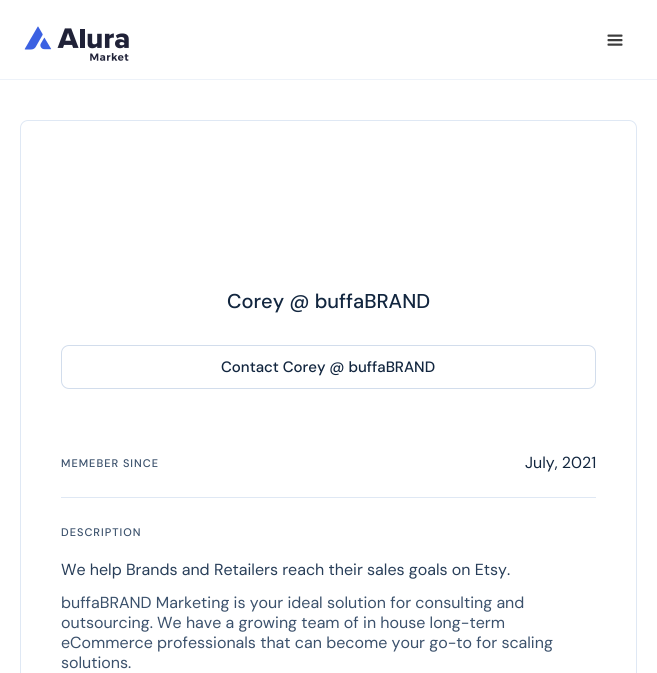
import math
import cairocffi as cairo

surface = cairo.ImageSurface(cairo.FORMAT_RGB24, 657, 673)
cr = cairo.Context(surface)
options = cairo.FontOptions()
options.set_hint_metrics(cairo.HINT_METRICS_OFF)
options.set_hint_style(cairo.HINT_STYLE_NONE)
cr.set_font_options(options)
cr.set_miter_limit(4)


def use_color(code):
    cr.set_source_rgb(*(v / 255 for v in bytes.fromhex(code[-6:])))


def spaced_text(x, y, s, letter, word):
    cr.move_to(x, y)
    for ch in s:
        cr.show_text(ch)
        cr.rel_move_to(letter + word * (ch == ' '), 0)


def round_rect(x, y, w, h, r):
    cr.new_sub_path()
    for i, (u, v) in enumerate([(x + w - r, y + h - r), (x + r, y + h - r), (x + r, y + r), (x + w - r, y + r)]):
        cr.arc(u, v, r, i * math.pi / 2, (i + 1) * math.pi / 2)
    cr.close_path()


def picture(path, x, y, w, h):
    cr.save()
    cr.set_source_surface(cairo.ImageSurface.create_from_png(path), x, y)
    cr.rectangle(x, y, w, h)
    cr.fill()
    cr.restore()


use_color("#ffffff")
cr.paint()
use_color("#edf2f9")
cr.rectangle(0, 79, 657, 1)
cr.fill()
picture("img1.png", 24, 26, 105, 35)
picture("img2.png", 607, 34, 16, 12)
round_rect(20.5, 120.5, 616, 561, 7.5)
use_color("#dfe8f4")
cr.set_line_width(1)
cr.stroke()
cr.select_font_face("DM Sans Medium")
cr.set_font_size(20)
use_color("#12263f")
cr.move_to(227, 308)
cr.show_text("Corey @ buffaBRAND")
round_rect(61.5, 345.5, 534, 43, 7.5)
use_color("#d2ddec")
cr.stroke()
cr.set_font_size(15)
use_color("#12263f")
cr.move_to(221, 372)
cr.show_text("Contact Corey @ buffaBRAND")
cr.set_font_size(11)
use_color("#3b516c")
spaced_text(61, 467, "MEMEBER SINCE", 1, 0)
cr.select_font_face("DM Sans")
cr.set_font_size(16)
use_color("#12263f")
cr.move_to(525, 468)
cr.show_text("July, 2021")
use_color("#dfe8f4")
cr.rectangle(61, 497, 535, 1)
cr.fill()
cr.select_font_face("DM Sans Medium")
cr.set_font_size(11)
use_color("#3b516c")
spaced_text(61, 536, "DESCRIPTION", 1, 0)
cr.select_font_face("DM Sans")
cr.set_font_size(16)
use_color("#283e59")
cr.move_to(61, 575)
cr.show_text("We help Brands and Retailers reach their sales goals on Etsy.")
use_color("#3b516c")
cr.move_to(61, 608)
cr.show_text("buffaBRAND Marketing is your ideal solution for consulting and")
cr.move_to(61, 628)
cr.show_text("outsourcing. We have a growing team of in house long-term")
cr.move_to(61, 648)
cr.show_text("eCommerce professionals that can become your go-to for scaling")
cr.move_to(61, 668)
cr.show_text("solutions.")
surface.write_to_png("result.png")
